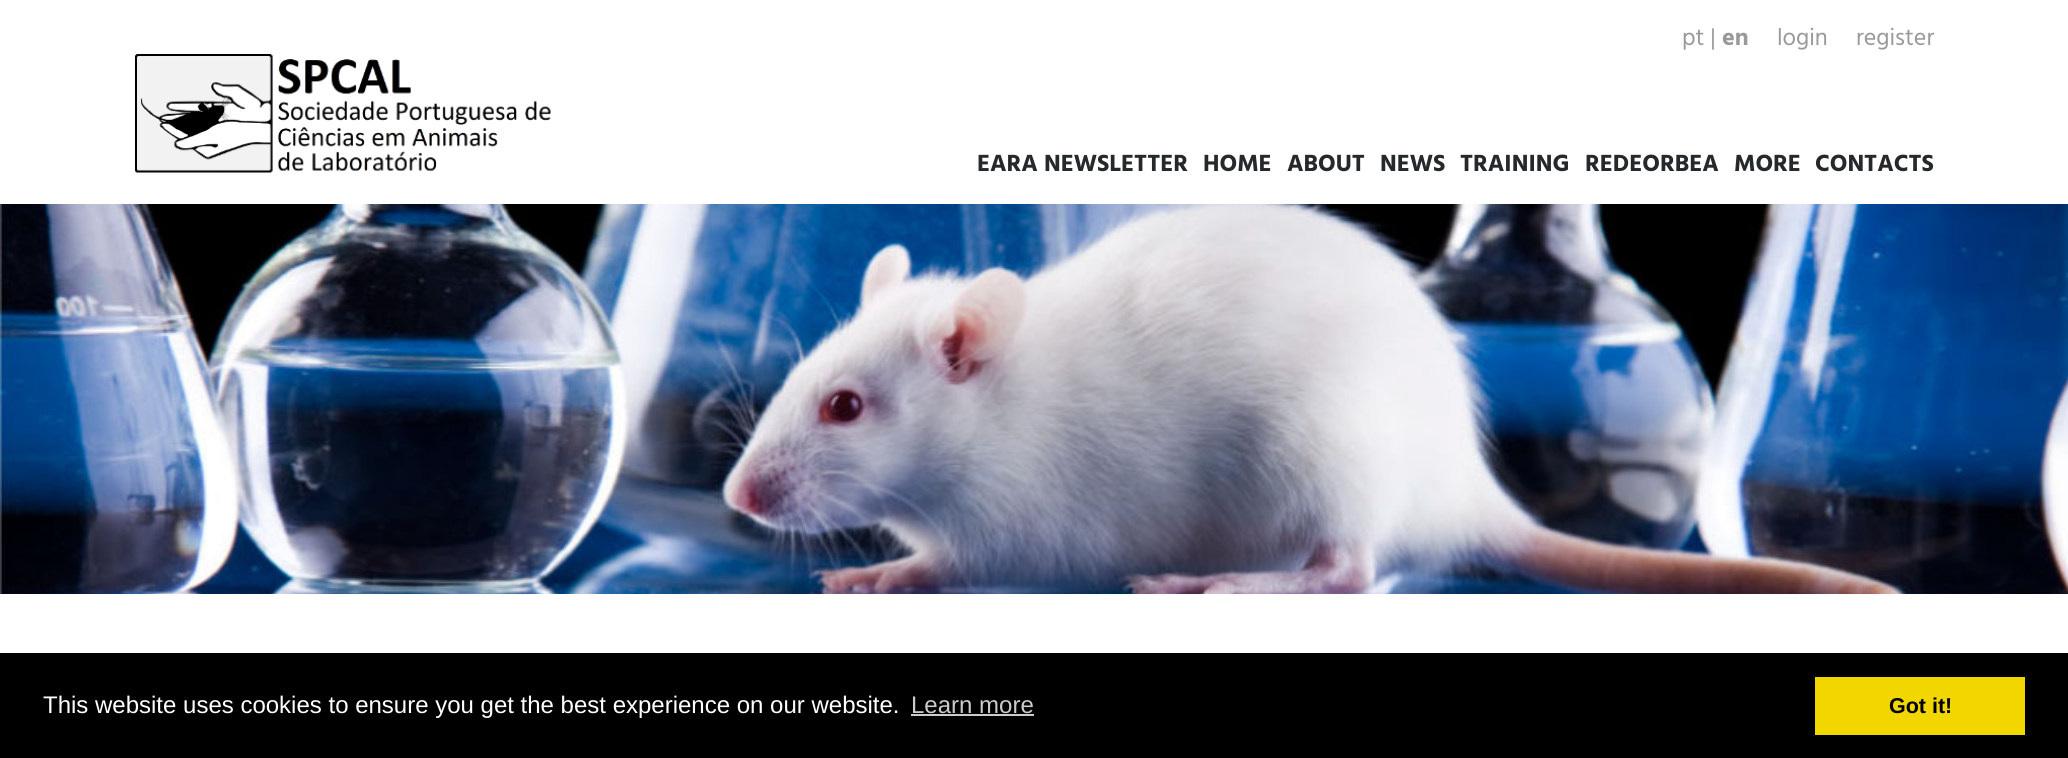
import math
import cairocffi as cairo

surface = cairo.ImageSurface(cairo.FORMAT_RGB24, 2068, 758)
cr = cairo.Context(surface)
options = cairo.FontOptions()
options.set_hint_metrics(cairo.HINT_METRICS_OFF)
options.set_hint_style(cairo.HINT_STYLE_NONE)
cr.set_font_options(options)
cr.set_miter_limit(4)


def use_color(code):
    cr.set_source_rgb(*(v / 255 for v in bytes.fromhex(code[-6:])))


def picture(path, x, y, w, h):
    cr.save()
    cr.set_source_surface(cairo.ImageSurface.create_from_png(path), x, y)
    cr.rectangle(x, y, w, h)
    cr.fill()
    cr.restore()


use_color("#ffffff")
cr.paint()
cr.select_font_face("Hind")
cr.set_font_size(24)
use_color("#999999")
cr.move_to(1682, 45)
cr.show_text("pt |")
cr.select_font_face("Hind", cairo.FONT_SLANT_NORMAL, cairo.FONT_WEIGHT_BOLD)
cr.move_to(1722, 45)
cr.show_text("en")
cr.select_font_face("Hind")
cr.move_to(1777, 45)
cr.show_text("login")
cr.move_to(1856, 45)
cr.show_text("register")
picture("img1.png", 135, 54, 416, 119)
cr.select_font_face("Hind", cairo.FONT_SLANT_NORMAL, cairo.FONT_WEIGHT_BOLD)
use_color("#25292c")
cr.move_to(977, 171)
cr.show_text("EARA NEWSLETTER")
cr.move_to(1203, 171)
cr.show_text("HOME")
cr.move_to(1287, 171)
cr.show_text("ABOUT")
cr.move_to(1380, 171)
cr.show_text("NEWS")
cr.move_to(1460, 171)
cr.show_text("TRAINING")
cr.move_to(1585, 171)
cr.show_text("REDEORBEA")
cr.move_to(1734, 171)
cr.show_text("MORE")
cr.move_to(1815, 171)
cr.show_text("CONTACTS")
picture("img2.png", 0, 204, 2068, 390)
use_color("#000000")
cr.rectangle(0, 653, 2068, 105)
cr.fill()
cr.select_font_face("Liberation Sans")
use_color("#ffffff")
cr.move_to(43, 713)
cr.show_text("This website uses cookies to ensure you get the best experience on our website.")
use_color("#cccccc")
cr.move_to(911, 713)
cr.show_text("Learn more")
cr.rectangle(911, 714, 123, 2)
cr.fill()
use_color("#f1d600")
cr.rectangle(1815, 677, 210, 58)
cr.fill()
cr.select_font_face("Liberation Sans", cairo.FONT_SLANT_NORMAL, cairo.FONT_WEIGHT_BOLD)
cr.set_font_size(21.5)
use_color("#000000")
cr.move_to(1889, 713)
cr.show_text("Got it!")
surface.write_to_png("result.png")
